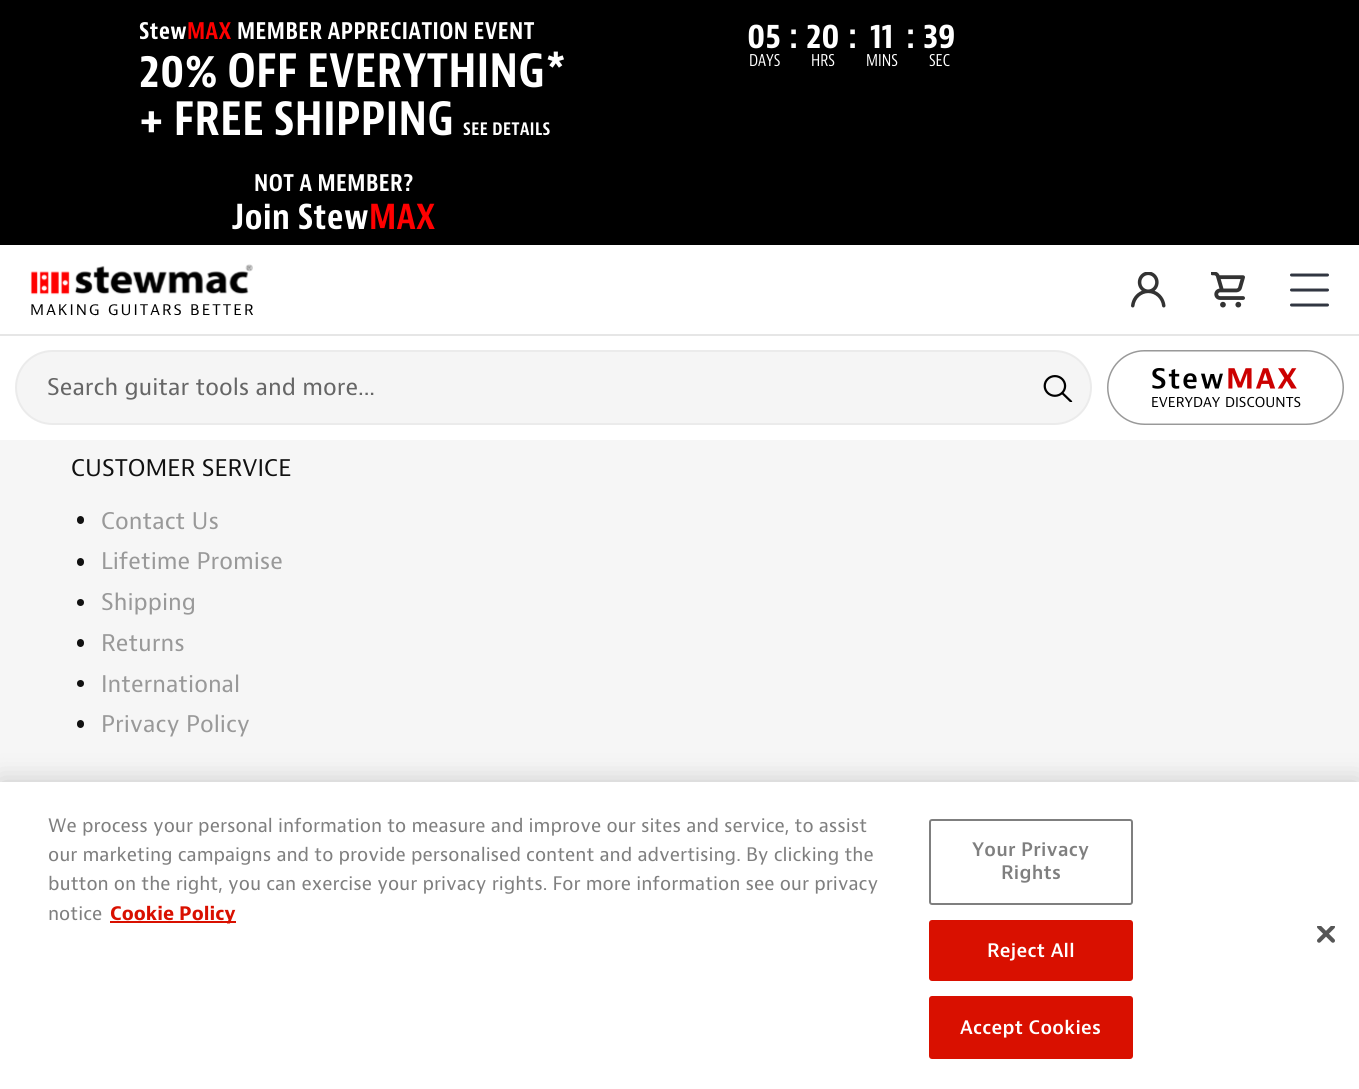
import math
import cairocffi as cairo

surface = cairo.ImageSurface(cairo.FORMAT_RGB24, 1359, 1089)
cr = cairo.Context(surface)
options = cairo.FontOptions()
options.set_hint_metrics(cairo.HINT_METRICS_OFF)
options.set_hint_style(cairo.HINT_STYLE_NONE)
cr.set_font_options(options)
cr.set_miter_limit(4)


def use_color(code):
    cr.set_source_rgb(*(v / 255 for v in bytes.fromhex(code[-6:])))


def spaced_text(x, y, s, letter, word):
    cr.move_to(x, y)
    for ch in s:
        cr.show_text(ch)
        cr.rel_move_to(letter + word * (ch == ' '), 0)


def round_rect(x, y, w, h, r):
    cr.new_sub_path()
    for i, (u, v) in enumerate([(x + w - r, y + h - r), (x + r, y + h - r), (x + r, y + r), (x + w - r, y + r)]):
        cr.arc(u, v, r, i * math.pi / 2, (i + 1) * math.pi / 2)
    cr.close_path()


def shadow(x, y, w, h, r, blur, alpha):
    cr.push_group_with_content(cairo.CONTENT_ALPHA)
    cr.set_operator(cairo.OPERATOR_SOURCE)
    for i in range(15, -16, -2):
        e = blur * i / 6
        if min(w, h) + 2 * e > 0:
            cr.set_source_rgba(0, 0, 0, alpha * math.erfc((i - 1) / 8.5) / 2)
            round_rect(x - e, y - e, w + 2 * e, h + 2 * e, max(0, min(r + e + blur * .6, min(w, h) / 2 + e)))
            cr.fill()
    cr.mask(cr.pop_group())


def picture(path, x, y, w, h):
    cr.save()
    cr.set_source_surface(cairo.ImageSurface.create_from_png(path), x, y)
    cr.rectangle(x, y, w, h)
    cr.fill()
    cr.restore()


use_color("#f6f6f6")
cr.paint()
use_color("#ffffff")
cr.rectangle(0, 245, 1359, 195)
cr.fill()
use_color("#000000")
cr.rectangle(0, 0, 1359, 245)
cr.fill()
cr.select_font_face("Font", cairo.FONT_SLANT_NORMAL, cairo.FONT_WEIGHT_BOLD)
cr.set_font_size(24)
use_color("#ffffff")
spaced_text(139, 39, "Stew", 0.5, 0)
use_color("#ff0000")
spaced_text(187, 39, "MAX", 0.5, 0)
use_color("#ffffff")
spaced_text(237, 39, "MEMBER APPRECIATION EVENT", 0.5, 0)
cr.set_font_size(48)
spaced_text(139, 87, "20% OFF EVERYTHING*", 0.5, 0)
spaced_text(139, 135, "+ FREE SHIPPING", 0.5, 0)
cr.set_font_size(18)
spaced_text(463, 135, "SEE DETAILS", 0.5, 0)
cr.set_font_size(36)
cr.move_to(747, 48)
cr.show_text("05")
cr.move_to(789, 48)
cr.show_text(":")
cr.move_to(806, 48)
cr.show_text("20")
cr.move_to(848, 48)
cr.show_text(":")
cr.move_to(870, 48)
cr.show_text("11")
cr.move_to(906, 48)
cr.show_text(":")
cr.move_to(923, 48)
cr.show_text("39")
cr.select_font_face("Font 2")
cr.set_font_size(17)
cr.move_to(749, 66)
cr.show_text("DAYS")
cr.move_to(811, 66)
cr.show_text("HRS")
cr.move_to(866, 66)
cr.show_text("MINS")
cr.move_to(929, 66)
cr.show_text("SEC")
cr.select_font_face("Font", cairo.FONT_SLANT_NORMAL, cairo.FONT_WEIGHT_BOLD)
cr.set_font_size(24)
spaced_text(254, 191, "NOT A MEMBER?", 0.5, 0)
cr.set_font_size(36)
spaced_text(232, 229, "Join Stew", 0.5, 0)
use_color("#ff0000")
spaced_text(369, 229, "MAX", 0.5, 0)
use_color("#e6e6e6")
cr.rectangle(0, 334, 1359, 2)
cr.fill()
picture("img1.png", 30, 264, 223, 52)
picture("img2.png", 1131, 272, 35, 36)
picture("img3.png", 1211, 272, 34, 36)
cr.new_path()
cr.move_to(1291.5, 275)
cr.line_to(1327.5, 275)
cr.move_to(1291.5, 290)
cr.line_to(1327.5, 290)
cr.move_to(1291.5, 305)
cr.line_to(1327.5, 305)
use_color("#313641")
cr.set_line_width(3)
cr.set_line_cap(cairo.LINE_CAP_ROUND)
cr.stroke()
use_color("#f5f5f5")
round_rect(16, 351, 1075, 73, 36.5)
cr.fill_preserve()
use_color("#ebebeb")
cr.set_line_width(2)
cr.set_line_cap(cairo.LINE_CAP_BUTT)
cr.stroke()
cr.select_font_face("Font")
cr.set_font_size(24)
use_color("#666666")
cr.move_to(47, 395)
cr.show_text("Search guitar tools and more...")
picture("img4.png", 1043, 375, 30, 27)
picture("img5.png", 1107, 350, 237, 75)
cr.set_font_size(14.25)
use_color("#000000")
spaced_text(1151, 407, "EVERYDAY DISCOUNTS", 0, 1)
cr.set_font_size(24)
use_color("#111111")
cr.move_to(71, 476)
cr.show_text("CUSTOMER SERVICE")
round_rect(77, 516, 7, 8, 3.5)
cr.fill()
use_color("#999999")
cr.move_to(101, 529)
cr.show_text("Contact Us")
use_color("#111111")
round_rect(77, 558, 7, 8, 3.5)
cr.fill()
use_color("#999999")
cr.move_to(101, 569)
cr.show_text("Lifetime Promise")
use_color("#111111")
cr.new_path()
cr.arc(80.5, 602.5, 3.5, 0, 2 * math.pi)
cr.fill()
use_color("#999999")
cr.move_to(101, 610)
cr.show_text("Shipping")
use_color("#111111")
round_rect(77, 639, 7, 8, 3.5)
cr.fill()
use_color("#999999")
cr.move_to(101, 651)
cr.show_text("Returns")
use_color("#111111")
cr.new_path()
cr.arc(80.5, 683.5, 3.5, 0, 2 * math.pi)
cr.fill()
use_color("#999999")
cr.move_to(101, 692)
cr.show_text("International")
use_color("#111111")
round_rect(77, 720, 7, 8, 3.5)
cr.fill()
use_color("#999999")
cr.move_to(101, 732)
cr.show_text("Privacy Policy")
use_color("#000000")
shadow(0, 782, 1359, 307, 0, 13.5, 0.2)
use_color("#ffffff")
cr.rectangle(0, 782, 1359, 307)
cr.fill()
cr.set_font_size(19.5)
use_color("#7f7f7f")
cr.move_to(48, 832)
cr.show_text("We process your personal information to measure and improve our sites and service, to assist")
cr.move_to(48, 861)
cr.show_text("our marketing campaigns and to provide personalised content and advertising. By clicking the")
cr.move_to(48, 890)
cr.show_text("button on the right, you can exercise your privacy rights. For more information see our privacy")
cr.move_to(48, 920)
cr.show_text("notice")
use_color("#d91000")
cr.rectangle(110, 921, 126, 2)
cr.fill()
cr.select_font_face("Font 2", cairo.FONT_SLANT_NORMAL, cairo.FONT_WEIGHT_BOLD)
cr.move_to(110, 920)
cr.show_text("Cookie Policy")
round_rect(930, 820, 202, 84, 2)
use_color("#7f7f7f")
cr.stroke()
cr.select_font_face("Font SemiBold")
spaced_text(972, 856, "Your Privacy", 0.25, 0)
spaced_text(1001, 879, "Rights", 0.25, 0)
use_color("#d91000")
round_rect(930, 921, 202, 59, 2)
cr.fill_preserve()
cr.stroke()
use_color("#ffffff")
spaced_text(987, 957, "Reject All", 0.25, 0)
use_color("#d91000")
round_rect(930, 997, 202, 61, 2)
cr.fill_preserve()
cr.stroke()
use_color("#ffffff")
spaced_text(960, 1034, "Accept Cookies", 0.25, 0)
picture("img6.png", 1317, 926, 18, 17)
surface.write_to_png("result.png")
